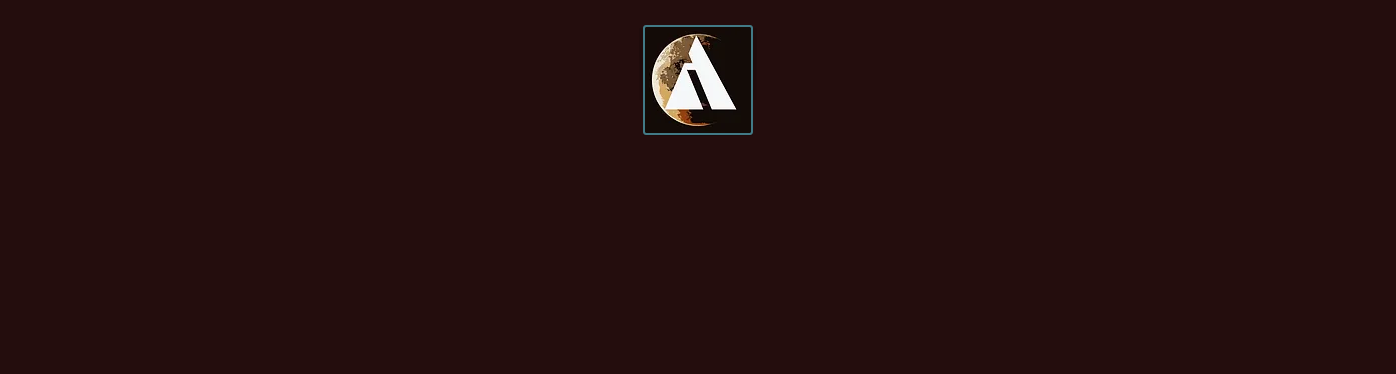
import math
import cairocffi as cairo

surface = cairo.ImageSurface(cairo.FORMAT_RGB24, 1396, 374)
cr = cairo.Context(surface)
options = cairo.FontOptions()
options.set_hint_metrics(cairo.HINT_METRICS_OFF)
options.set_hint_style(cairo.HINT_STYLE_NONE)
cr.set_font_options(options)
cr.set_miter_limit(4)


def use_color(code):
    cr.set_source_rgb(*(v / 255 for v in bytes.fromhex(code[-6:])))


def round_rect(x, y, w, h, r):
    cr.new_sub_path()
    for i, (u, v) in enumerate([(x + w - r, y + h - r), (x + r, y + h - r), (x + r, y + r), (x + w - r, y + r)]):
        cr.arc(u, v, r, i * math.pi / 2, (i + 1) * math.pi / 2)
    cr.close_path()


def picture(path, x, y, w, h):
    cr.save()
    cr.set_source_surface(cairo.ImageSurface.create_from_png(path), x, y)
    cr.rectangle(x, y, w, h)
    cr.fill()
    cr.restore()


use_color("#240d0d")
cr.paint()
picture("img1.png", 639, 28, 4, 72)
use_color("#427a86")
round_rect(644, 26, 108, 108, 2)
cr.fill_preserve()
cr.stroke()
picture("img2.png", 645, 27, 106, 106)
picture("img3.png", 643, 135, 110, 1)
picture("img4.png", 753, 28, 4, 72)
surface.write_to_png("result.png")
